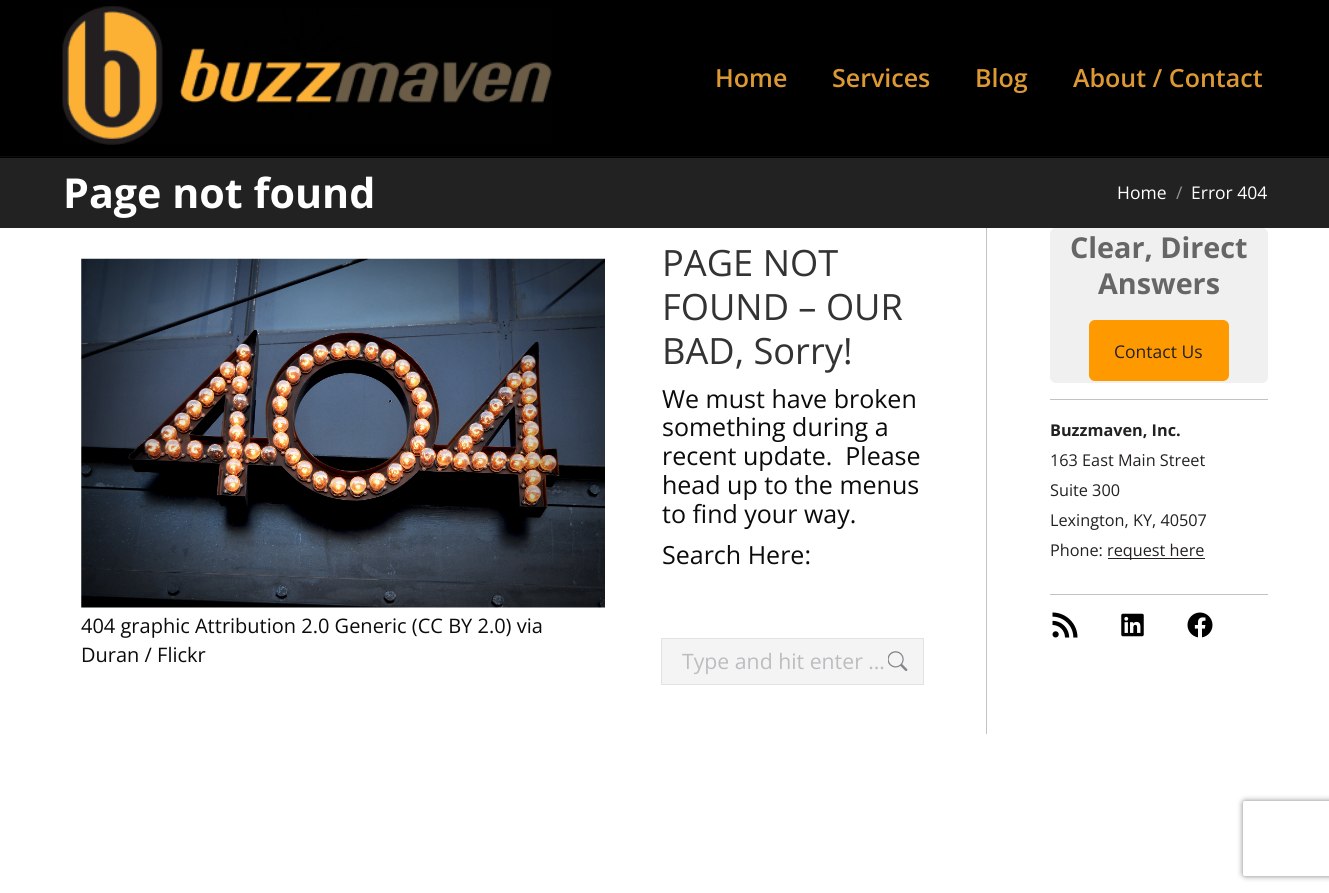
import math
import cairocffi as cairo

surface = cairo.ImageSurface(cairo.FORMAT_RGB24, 1329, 893)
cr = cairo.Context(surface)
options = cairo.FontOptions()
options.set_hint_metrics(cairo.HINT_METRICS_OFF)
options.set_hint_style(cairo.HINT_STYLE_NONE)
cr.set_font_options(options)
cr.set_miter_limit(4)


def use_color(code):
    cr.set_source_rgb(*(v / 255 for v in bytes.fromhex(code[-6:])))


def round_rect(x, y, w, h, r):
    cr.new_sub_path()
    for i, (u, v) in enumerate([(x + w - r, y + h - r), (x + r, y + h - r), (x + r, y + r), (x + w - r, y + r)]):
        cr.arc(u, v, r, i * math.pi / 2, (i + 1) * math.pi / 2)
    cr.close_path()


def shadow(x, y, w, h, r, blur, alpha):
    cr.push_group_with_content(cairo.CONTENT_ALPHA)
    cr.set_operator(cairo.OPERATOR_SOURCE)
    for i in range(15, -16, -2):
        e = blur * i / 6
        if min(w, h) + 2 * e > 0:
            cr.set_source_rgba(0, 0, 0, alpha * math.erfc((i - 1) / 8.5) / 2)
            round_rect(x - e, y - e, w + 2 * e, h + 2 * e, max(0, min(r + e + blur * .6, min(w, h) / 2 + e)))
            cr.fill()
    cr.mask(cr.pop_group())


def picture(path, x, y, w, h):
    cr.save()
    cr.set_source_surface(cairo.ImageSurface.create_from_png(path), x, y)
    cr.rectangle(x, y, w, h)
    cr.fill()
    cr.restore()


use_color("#ffffff")
cr.paint()
use_color("#000000")
cr.rectangle(0, 0, 1329, 158)
cr.fill()
use_color("#0c0c0c")
cr.rectangle(0, 156, 1329, 1)
cr.fill()
picture("img1.png", 62, 6, 490, 139)
cr.select_font_face("Open Sans SemiBold")
cr.set_font_size(25)
use_color("#dd9933")
cr.move_to(715, 87)
cr.show_text("Home")
cr.move_to(832, 87)
cr.show_text("Services")
cr.move_to(975, 87)
cr.show_text("Blog")
cr.move_to(1073, 87)
cr.show_text("About / Contact")
use_color("#222222")
cr.rectangle(0, 158, 1329, 70)
cr.fill()
cr.select_font_face("Open Sans", cairo.FONT_SLANT_NORMAL, cairo.FONT_WEIGHT_BOLD)
cr.set_font_size(41.25)
use_color("#ffffff")
cr.move_to(63, 208)
cr.show_text("Page not found")
cr.select_font_face("Open Sans")
cr.set_font_size(17.5)
cr.move_to(1117, 199)
cr.show_text("Home")
use_color("#919191")
cr.move_to(1176, 199)
cr.show_text("/")
use_color("#ffffff")
cr.move_to(1191, 199)
cr.show_text("Error 404")
picture("img2.png", 81, 258, 524, 350)
cr.set_font_size(20)
use_color("#0c0b0c")
cr.move_to(81, 633)
cr.show_text("404 graphic Attribution 2.0 Generic (CC BY 2.0) via")
cr.move_to(81, 662)
cr.show_text("Duran / Flickr")
cr.set_font_size(36.25)
use_color("#333333")
cr.move_to(662, 276)
cr.show_text("PAGE NOT")
cr.move_to(662, 320)
cr.show_text("FOUND – OUR")
cr.move_to(662, 364)
cr.show_text("BAD, Sorry!")
cr.set_font_size(25)
use_color("#0c0b0c")
cr.move_to(662, 408)
cr.show_text("We must have broken")
cr.move_to(662, 436)
cr.show_text("something during a")
cr.move_to(662, 465)
cr.show_text("recent update.  Please")
cr.move_to(662, 494)
cr.show_text("head up to the menus")
cr.move_to(662, 523)
cr.show_text("to find your way.")
cr.move_to(662, 564)
cr.show_text("Search Here:")
use_color("#f4f4f4")
cr.rectangle(661.5, 638.5, 262, 46)
cr.fill_preserve()
use_color("#e2e2e2")
cr.set_line_width(1)
cr.stroke()
cr.set_font_size(21.25)
use_color("#bdbdc0")
cr.move_to(682, 669)
cr.show_text("Type and hit enter …")
picture("img3.png", 888, 651, 20, 20)
use_color("#c2c2c2")
cr.rectangle(986, 228, 1, 506)
cr.fill()
use_color("#f0f0f0")
round_rect(1050, 228, 218, 155, 6)
cr.fill()
cr.select_font_face("Open Sans", cairo.FONT_SLANT_NORMAL, cairo.FONT_WEIGHT_BOLD)
cr.set_font_size(28.75)
use_color("#666666")
cr.move_to(1070, 258)
cr.show_text("Clear, Direct")
cr.move_to(1098, 294)
cr.show_text("Answers")
use_color("#ff9900")
round_rect(1089, 320, 140, 61, 6)
cr.fill()
cr.select_font_face("Open Sans")
cr.set_font_size(17.5)
use_color("#232021")
cr.move_to(1114, 358)
cr.show_text("Contact Us")
use_color("#c2c2c2")
cr.rectangle(1050, 399, 218, 1)
cr.fill()
cr.select_font_face("Open Sans", cairo.FONT_SLANT_NORMAL, cairo.FONT_WEIGHT_BOLD)
cr.set_font_size(16.25)
use_color("#232021")
cr.move_to(1050, 436)
cr.show_text("Buzzmaven, Inc.")
cr.select_font_face("Open Sans")
cr.move_to(1050, 466)
cr.show_text("163 East Main Street")
cr.move_to(1050, 496)
cr.show_text("Suite 300")
cr.move_to(1050, 526)
cr.show_text("Lexington, KY, 40507")
cr.move_to(1050, 556)
cr.show_text("Phone:")
cr.rectangle(1108, 558, 97, 1)
cr.fill()
cr.move_to(1107, 556)
cr.show_text("request here")
use_color("#c2c2c2")
cr.rectangle(1050, 594, 218, 1)
cr.fill()
picture("img4.png", 1052, 612, 26, 26)
picture("img5.png", 1121, 613, 23, 24)
picture("img6.png", 1187, 612, 26, 26)
cr.save()
cr.set_fill_rule(cairo.FILL_RULE_EVEN_ODD)
cr.new_path()
cr.move_to(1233, 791)
cr.line_to(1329, 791)
cr.line_to(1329, 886)
cr.line_to(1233, 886)
cr.close_path()
cr.move_to(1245.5, 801)
cr.line_to(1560.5, 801)
cr.curve_to(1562, 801, 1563, 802, 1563, 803.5)
cr.line_to(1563, 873.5)
cr.curve_to(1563, 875, 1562, 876, 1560.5, 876)
cr.line_to(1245.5, 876)
cr.curve_to(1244, 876, 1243, 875, 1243, 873.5)
cr.line_to(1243, 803.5)
cr.curve_to(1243, 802, 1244, 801, 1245.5, 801)
cr.close_path()
cr.clip()
use_color("#808080")
shadow(1243, 801, 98, 75, 2.5, 3, 1)
cr.restore()
surface.write_to_png("result.png")
